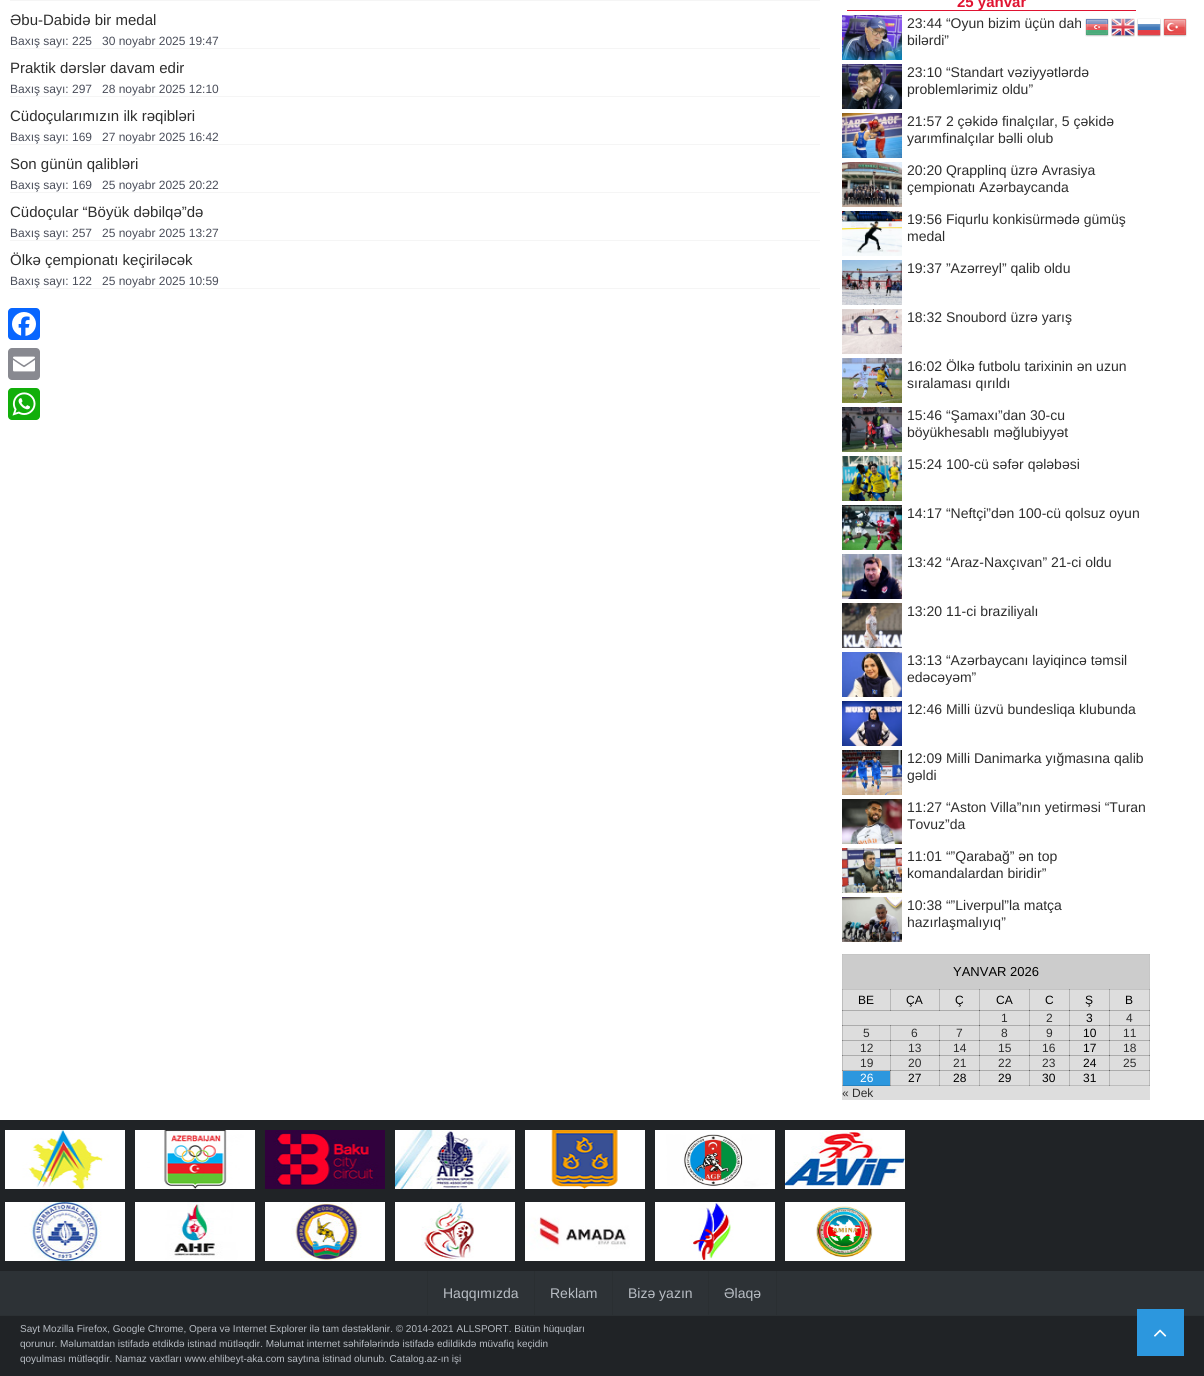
import math
import cairocffi as cairo

surface = cairo.ImageSurface(cairo.FORMAT_RGB24, 1204, 1376)
cr = cairo.Context(surface)
options = cairo.FontOptions()
options.set_hint_metrics(cairo.HINT_METRICS_OFF)
options.set_hint_style(cairo.HINT_STYLE_NONE)
cr.set_font_options(options)
cr.set_miter_limit(4)


def use_color(code):
    cr.set_source_rgb(*(v / 255 for v in bytes.fromhex(code[-6:])))


def round_rect(x, y, w, h, r):
    cr.new_sub_path()
    for i, (u, v) in enumerate([(x + w - r, y + h - r), (x + r, y + h - r), (x + r, y + r), (x + w - r, y + r)]):
        cr.arc(u, v, r, i * math.pi / 2, (i + 1) * math.pi / 2)
    cr.close_path()


def picture(path, x, y, w, h):
    cr.save()
    cr.set_source_surface(cairo.ImageSurface.create_from_png(path), x, y)
    cr.rectangle(x, y, w, h)
    cr.fill()
    cr.restore()


use_color("#ffffff")
cr.paint()
use_color("#f5f5f5")
cr.rectangle(10, 0, 810, 1)
cr.fill()
cr.select_font_face("Liberation Sans")
cr.set_font_size(15)
use_color("#2e2e2e")
cr.move_to(10, 25)
cr.show_text("Əbu-Dabidə bir medal")
use_color("#f5f5f5")
cr.rectangle(10, 48, 810, 1)
cr.fill()
cr.set_font_size(12)
use_color("#4a4e5a")
cr.move_to(10, 45)
cr.show_text("Baxış sayı: 225")
cr.move_to(102, 45)
cr.show_text("30 noyabr 2025 19:47")
cr.set_font_size(15)
use_color("#2e2e2e")
cr.move_to(10, 73)
cr.show_text("Praktik dərslər davam edir")
use_color("#f5f5f5")
cr.rectangle(10, 96, 810, 1)
cr.fill()
cr.set_font_size(12)
use_color("#4a4e5a")
cr.move_to(10, 93)
cr.show_text("Baxış sayı: 297")
cr.move_to(102, 93)
cr.show_text("28 noyabr 2025 12:10")
cr.set_font_size(15)
use_color("#2e2e2e")
cr.move_to(10, 121)
cr.show_text("Cüdoçularımızın ilk rəqibləri")
use_color("#f5f5f5")
cr.rectangle(10, 144, 810, 1)
cr.fill()
cr.set_font_size(12)
use_color("#4a4e5a")
cr.move_to(10, 141)
cr.show_text("Baxış sayı: 169")
cr.move_to(102, 141)
cr.show_text("27 noyabr 2025 16:42")
cr.set_font_size(15)
use_color("#2e2e2e")
cr.move_to(10, 169)
cr.show_text("Son günün qalibləri")
use_color("#f5f5f5")
cr.rectangle(10, 192, 810, 1)
cr.fill()
cr.set_font_size(12)
use_color("#4a4e5a")
cr.move_to(10, 189)
cr.show_text("Baxış sayı: 169")
cr.move_to(102, 189)
cr.show_text("25 noyabr 2025 20:22")
cr.save()
cr.rectangle(10, 203, 810, 17)
cr.clip()
cr.set_font_size(15)
use_color("#2e2e2e")
cr.move_to(10, 217)
cr.show_text("Cüdoçular “Böyük dəbilqə”də")
cr.restore()
use_color("#f5f5f5")
cr.rectangle(10, 240, 810, 1)
cr.fill()
use_color("#4a4e5a")
cr.move_to(10, 237)
cr.show_text("Baxış sayı: 257")
cr.move_to(102, 237)
cr.show_text("25 noyabr 2025 13:27")
cr.save()
cr.rectangle(10, 251, 810, 17)
cr.clip()
cr.set_font_size(15)
use_color("#2e2e2e")
cr.move_to(10, 265)
cr.show_text("Ölkə çempionatı keçiriləcək")
cr.restore()
use_color("#f5f5f5")
cr.rectangle(10, 288, 810, 1)
cr.fill()
use_color("#4a4e5a")
cr.move_to(10, 285)
cr.show_text("Baxış sayı: 122")
cr.move_to(102, 285)
cr.show_text("25 noyabr 2025 10:59")
use_color("#e01331")
cr.rectangle(847, 10, 289, 1)
cr.fill()
cr.select_font_face("Liberation Sans", cairo.FONT_SLANT_NORMAL, cairo.FONT_WEIGHT_BOLD)
cr.set_font_size(15)
cr.move_to(957, 7)
cr.show_text("25 yanvar")
picture("img1.png", 842, 15, 60, 45)
cr.select_font_face("Liberation Sans")
cr.set_font_size(14)
use_color("#2e2e2e")
cr.move_to(907, 28)
cr.show_text("23:44 “Oyun bizim üçün dah")
cr.move_to(907, 45)
cr.show_text("bilərdi”")
picture("img2.png", 842, 64, 60, 45)
cr.move_to(907, 77)
cr.show_text("23:10 “Standart vəziyyətlərdə")
cr.move_to(907, 94)
cr.show_text("problemlərimiz oldu”")
picture("img3.png", 842, 113, 60, 45)
cr.move_to(907, 126)
cr.show_text("21:57 2 çəkidə finalçılar, 5 çəkidə")
cr.move_to(907, 143)
cr.show_text("yarımfinalçılar bəlli olub")
picture("img4.png", 842, 162, 60, 45)
cr.move_to(907, 175)
cr.show_text("20:20 Qrapplinq üzrə Avrasiya")
cr.move_to(907, 192)
cr.show_text("çempionatı Azərbaycanda")
picture("img5.png", 842, 211, 60, 45)
cr.move_to(907, 224)
cr.show_text("19:56 Fiqurlu konkisürmədə gümüş")
cr.move_to(907, 241)
cr.show_text("medal")
picture("img6.png", 842, 260, 60, 45)
cr.move_to(907, 273)
cr.show_text("19:37 ”Azərreyl” qalib oldu")
picture("img7.png", 842, 309, 60, 45)
cr.move_to(907, 322)
cr.show_text("18:32 Snoubord üzrə yarış")
picture("img8.png", 842, 358, 60, 45)
cr.move_to(907, 371)
cr.show_text("16:02 Ölkə futbolu tarixinin ən uzun")
cr.move_to(907, 388)
cr.show_text("sıralaması qırıldı")
picture("img9.png", 842, 407, 60, 45)
cr.move_to(907, 420)
cr.show_text("15:46 “Şamaxı”dan 30-cu")
cr.move_to(907, 437)
cr.show_text("böyükhesablı məğlubiyyət")
picture("img10.png", 842, 456, 60, 45)
cr.move_to(907, 469)
cr.show_text("15:24 100-cü səfər qələbəsi")
picture("img11.png", 842, 505, 60, 45)
cr.move_to(907, 518)
cr.show_text("14:17 “Neftçi”dən 100-cü qolsuz oyun")
picture("img12.png", 842, 554, 60, 45)
cr.move_to(907, 567)
cr.show_text("13:42 “Araz-Naxçıvan” 21-ci oldu")
picture("img13.png", 842, 603, 60, 45)
cr.move_to(907, 616)
cr.show_text("13:20 11-ci braziliyalı")
picture("img14.png", 842, 652, 60, 45)
cr.move_to(907, 665)
cr.show_text("13:13 “Azərbaycanı layiqincə təmsil")
cr.move_to(907, 682)
cr.show_text("edəcəyəm”")
picture("img15.png", 842, 701, 60, 45)
cr.move_to(907, 714)
cr.show_text("12:46 Milli üzvü bundesliqa klubunda")
picture("img16.png", 842, 750, 60, 45)
cr.move_to(907, 763)
cr.show_text("12:09 Milli Danimarka yığmasına qalib")
cr.move_to(907, 780)
cr.show_text("gəldi")
picture("img17.png", 842, 799, 60, 45)
cr.move_to(907, 812)
cr.show_text("11:27 “Aston Villa”nın yetirməsi “Turan")
cr.move_to(907, 829)
cr.show_text("Tovuz”da")
picture("img18.png", 842, 848, 60, 45)
cr.move_to(907, 861)
cr.show_text("11:01 “”Qarabağ” ən top")
cr.move_to(907, 878)
cr.show_text("komandalardan biridir”")
picture("img19.png", 842, 897, 60, 45)
cr.move_to(907, 910)
cr.show_text("10:38 “”Liverpul”la matça")
cr.move_to(907, 927)
cr.show_text("hazırlaşmalıyıq”")
use_color("#dddddd")
cr.rectangle(842, 990, 308, 110)
cr.fill()
use_color("#b7b7b7")
cr.rectangle(890, 989, 1, 22)
cr.fill()
cr.rectangle(939, 989, 1, 22)
cr.fill()
cr.rectangle(979, 989, 1, 97)
cr.fill()
cr.rectangle(1029, 989, 1, 97)
cr.fill()
cr.rectangle(1069, 989, 1, 97)
cr.fill()
cr.rectangle(1109, 989, 1, 97)
cr.fill()
cr.rectangle(890, 1025, 1, 61)
cr.fill()
cr.rectangle(939, 1025, 1, 61)
cr.fill()
use_color("#c3c3c3")
cr.rectangle(842, 989, 308, 1)
cr.fill()
use_color("#939393")
cr.rectangle(890, 989, 1, 1)
cr.fill()
cr.rectangle(939, 989, 1, 1)
cr.fill()
cr.rectangle(979, 989, 1, 1)
cr.fill()
cr.rectangle(1029, 989, 1, 1)
cr.fill()
cr.rectangle(1069, 989, 1, 1)
cr.fill()
cr.rectangle(1109, 989, 1, 1)
cr.fill()
use_color("#acacac")
cr.rectangle(842, 1010, 308, 1)
cr.fill()
use_color("#828282")
cr.rectangle(890, 1010, 1, 1)
cr.fill()
cr.rectangle(939, 1010, 1, 1)
cr.fill()
use_color("#616161")
cr.rectangle(979, 1010, 1, 1)
cr.fill()
cr.rectangle(1029, 1010, 1, 1)
cr.fill()
cr.rectangle(1069, 1010, 1, 1)
cr.fill()
cr.rectangle(1109, 1010, 1, 1)
cr.fill()
use_color("#acacac")
cr.rectangle(842, 1025, 308, 1)
cr.fill()
use_color("#828282")
cr.rectangle(890, 1025, 1, 1)
cr.fill()
cr.rectangle(939, 1025, 1, 1)
cr.fill()
use_color("#616161")
cr.rectangle(979, 1025, 1, 1)
cr.fill()
cr.rectangle(1029, 1025, 1, 1)
cr.fill()
cr.rectangle(1069, 1025, 1, 1)
cr.fill()
cr.rectangle(1109, 1025, 1, 1)
cr.fill()
use_color("#acacac")
cr.rectangle(842, 1040, 308, 1)
cr.fill()
use_color("#616161")
cr.rectangle(890, 1040, 1, 1)
cr.fill()
cr.rectangle(939, 1040, 1, 1)
cr.fill()
cr.rectangle(979, 1040, 1, 1)
cr.fill()
cr.rectangle(1029, 1040, 1, 1)
cr.fill()
cr.rectangle(1069, 1040, 1, 1)
cr.fill()
cr.rectangle(1109, 1040, 1, 1)
cr.fill()
use_color("#acacac")
cr.rectangle(842, 1055, 308, 1)
cr.fill()
use_color("#616161")
cr.rectangle(890, 1055, 1, 1)
cr.fill()
cr.rectangle(939, 1055, 1, 1)
cr.fill()
cr.rectangle(979, 1055, 1, 1)
cr.fill()
cr.rectangle(1029, 1055, 1, 1)
cr.fill()
cr.rectangle(1069, 1055, 1, 1)
cr.fill()
cr.rectangle(1109, 1055, 1, 1)
cr.fill()
use_color("#acacac")
cr.rectangle(842, 1070, 308, 1)
cr.fill()
use_color("#616161")
cr.rectangle(890, 1070, 1, 1)
cr.fill()
cr.rectangle(939, 1070, 1, 1)
cr.fill()
cr.rectangle(979, 1070, 1, 1)
cr.fill()
cr.rectangle(1029, 1070, 1, 1)
cr.fill()
cr.rectangle(1069, 1070, 1, 1)
cr.fill()
cr.rectangle(1109, 1070, 1, 1)
cr.fill()
use_color("#bdbdbd")
cr.rectangle(842, 989, 1, 97)
cr.fill()
use_color("#a7a7a7")
cr.rectangle(842, 989, 1, 1)
cr.fill()
use_color("#828282")
cr.rectangle(842, 1010, 1, 1)
cr.fill()
cr.rectangle(842, 1025, 1, 1)
cr.fill()
cr.rectangle(842, 1040, 1, 1)
cr.fill()
cr.rectangle(842, 1055, 1, 1)
cr.fill()
cr.rectangle(842, 1070, 1, 1)
cr.fill()
use_color("#bdbdbd")
cr.rectangle(890, 1085, 260, 1)
cr.fill()
use_color("#8f8f8f")
cr.rectangle(890, 1085, 1, 1)
cr.fill()
cr.rectangle(939, 1085, 1, 1)
cr.fill()
cr.rectangle(979, 1085, 1, 1)
cr.fill()
cr.rectangle(1029, 1085, 1, 1)
cr.fill()
cr.rectangle(1069, 1085, 1, 1)
cr.fill()
cr.rectangle(1109, 1085, 1, 1)
cr.fill()
use_color("#a2a2a2")
cr.rectangle(842, 1085, 1, 1)
cr.fill()
use_color("#bdbdbd")
cr.rectangle(1149, 989, 1, 97)
cr.fill()
use_color("#a7a7a7")
cr.rectangle(1149, 989, 1, 1)
cr.fill()
use_color("#828282")
cr.rectangle(1149, 1010, 1, 1)
cr.fill()
cr.rectangle(1149, 1025, 1, 1)
cr.fill()
cr.rectangle(1149, 1040, 1, 1)
cr.fill()
cr.rectangle(1149, 1055, 1, 1)
cr.fill()
cr.rectangle(1149, 1070, 1, 1)
cr.fill()
use_color("#a2a2a2")
cr.rectangle(1149, 1085, 1, 1)
cr.fill()
use_color("#c6c6c6")
cr.rectangle(842, 954, 1, 35)
cr.fill()
cr.rectangle(1149, 954, 1, 35)
cr.fill()
cr.rectangle(842, 954, 308, 1)
cr.fill()
use_color("#c0c0c0")
cr.rectangle(842, 954, 1, 1)
cr.fill()
cr.rectangle(1149, 954, 1, 1)
cr.fill()
use_color("#cccccc")
cr.rectangle(843, 955, 306, 34)
cr.fill()
cr.set_font_size(13)
use_color("#000000")
cr.move_to(953, 976)
cr.show_text("YANVAR 2026")
cr.set_font_size(12)
cr.move_to(858, 1004)
cr.show_text("BE")
cr.move_to(906, 1004)
cr.show_text("ÇA")
cr.move_to(955, 1004)
cr.show_text("Ç")
cr.move_to(996, 1004)
cr.show_text("CA")
cr.move_to(1045, 1004)
cr.show_text("C")
cr.move_to(1085, 1004)
cr.show_text("Ş")
cr.move_to(1125, 1004)
cr.show_text("B")
use_color("#2e2e2e")
cr.move_to(1001, 1022)
cr.show_text("1")
cr.move_to(1046, 1022)
cr.show_text("2")
use_color("#000000")
cr.move_to(1086, 1022)
cr.show_text("3")
use_color("#2e2e2e")
cr.move_to(1126, 1022)
cr.show_text("4")
cr.move_to(863, 1037)
cr.show_text("5")
cr.move_to(911, 1037)
cr.show_text("6")
cr.move_to(956, 1037)
cr.show_text("7")
cr.move_to(1001, 1037)
cr.show_text("8")
cr.move_to(1046, 1037)
cr.show_text("9")
use_color("#000000")
cr.move_to(1083, 1037)
cr.show_text("10")
use_color("#2e2e2e")
cr.move_to(1123, 1037)
cr.show_text("11")
cr.move_to(860, 1052)
cr.show_text("12")
cr.move_to(908, 1052)
cr.show_text("13")
cr.move_to(953, 1052)
cr.show_text("14")
cr.move_to(998, 1052)
cr.show_text("15")
cr.move_to(1042, 1052)
cr.show_text("16")
use_color("#000000")
cr.move_to(1083, 1052)
cr.show_text("17")
use_color("#2e2e2e")
cr.move_to(1123, 1052)
cr.show_text("18")
cr.move_to(860, 1067)
cr.show_text("19")
cr.move_to(908, 1067)
cr.show_text("20")
cr.move_to(953, 1067)
cr.show_text("21")
cr.move_to(998, 1067)
cr.show_text("22")
cr.move_to(1042, 1067)
cr.show_text("23")
use_color("#000000")
cr.move_to(1083, 1067)
cr.show_text("24")
use_color("#2e2e2e")
cr.move_to(1123, 1067)
cr.show_text("25")
use_color("#2c97de")
cr.rectangle(843, 1071, 47, 14)
cr.fill()
use_color("#2681be")
cr.rectangle(843, 1085, 47, 1)
cr.fill()
use_color("#ffffff")
cr.move_to(860, 1082)
cr.show_text("26")
use_color("#000000")
cr.move_to(908, 1082)
cr.show_text("27")
cr.move_to(953, 1082)
cr.show_text("28")
cr.move_to(998, 1082)
cr.show_text("29")
cr.move_to(1042, 1082)
cr.show_text("30")
cr.move_to(1083, 1082)
cr.show_text("31")
use_color("#2e2e2e")
cr.move_to(842, 1097)
cr.show_text("« Dek")
picture("img20.png", 1085, 18, 24, 19)
picture("img21.png", 1111, 18, 24, 19)
picture("img22.png", 1137, 18, 24, 19)
picture("img23.png", 1163, 18, 24, 19)
use_color("#0866ff")
round_rect(8, 308, 32, 32, 4)
cr.fill()
picture("img24.png", 12, 312, 24, 24)
use_color("#888990")
round_rect(8, 348, 32, 32, 4)
cr.fill()
picture("img25.png", 13, 356, 22, 16)
use_color("#12af0a")
round_rect(8, 388, 32, 32, 4)
cr.fill()
picture("img26.png", 12, 392, 24, 24)
use_color("#202326")
cr.rectangle(0, 1120, 1204, 256)
cr.fill()
picture("img27.png", 5, 1130, 120, 59)
picture("img28.png", 135, 1130, 120, 59)
picture("img29.png", 265, 1130, 120, 59)
picture("img30.png", 395, 1130, 120, 59)
picture("img31.png", 525, 1130, 120, 59)
picture("img32.png", 655, 1130, 120, 59)
picture("img33.png", 785, 1130, 120, 59)
picture("img34.png", 5, 1202, 120, 59)
picture("img35.png", 135, 1202, 120, 59)
picture("img36.png", 265, 1202, 120, 59)
picture("img37.png", 395, 1202, 120, 59)
picture("img38.png", 525, 1202, 120, 59)
picture("img39.png", 655, 1202, 120, 59)
picture("img40.png", 785, 1202, 120, 59)
use_color("#2d3236")
cr.rectangle(0, 1271, 1204, 44)
cr.fill()
use_color("#2b3033")
cr.rectangle(0, 1315, 1204, 1)
cr.fill()
use_color("#2a2f32")
cr.rectangle(534, 1271, 1, 44)
cr.fill()
cr.rectangle(427, 1271, 1, 44)
cr.fill()
cr.set_font_size(14)
use_color("#b8bdc4")
cr.move_to(443, 1298)
cr.show_text("Haqqımızda")
use_color("#2a2f32")
cr.rectangle(612, 1271, 1, 44)
cr.fill()
use_color("#b8bdc4")
cr.move_to(550, 1298)
cr.show_text("Reklam")
use_color("#2a2f32")
cr.rectangle(708, 1271, 1, 44)
cr.fill()
use_color("#b8bdc4")
cr.move_to(628, 1298)
cr.show_text("Bizə yazın")
use_color("#2a2f32")
cr.rectangle(776, 1271, 1, 44)
cr.fill()
use_color("#b8bdc4")
cr.move_to(724, 1298)
cr.show_text("Əlaqə")
cr.set_font_size(10)
cr.move_to(20, 1332)
cr.show_text("Sayt Mozilla Firefox, Google Chrome, Opera və Internet Explorer ilə tam dəstəklənir. © 2014-2021 ALLSPORT. Bütün hüquqları")
cr.move_to(20, 1347)
cr.show_text("qorunur. Məlumatdan istifadə etdikdə istinad mütləqdir. Məlumat internet səhifələrində istifadə edildikdə müvafiq keçidin")
cr.move_to(20, 1362)
cr.show_text("qoyulması mütləqdir. Namaz vaxtları www.ehlibeyt-aka.com saytına istinad olunub. Catalog.az-ın işi")
use_color("#2c97de")
cr.rectangle(1137, 1309, 47, 47)
cr.fill()
picture("img41.png", 1154, 1329, 13, 8)
surface.write_to_png("result.png")
